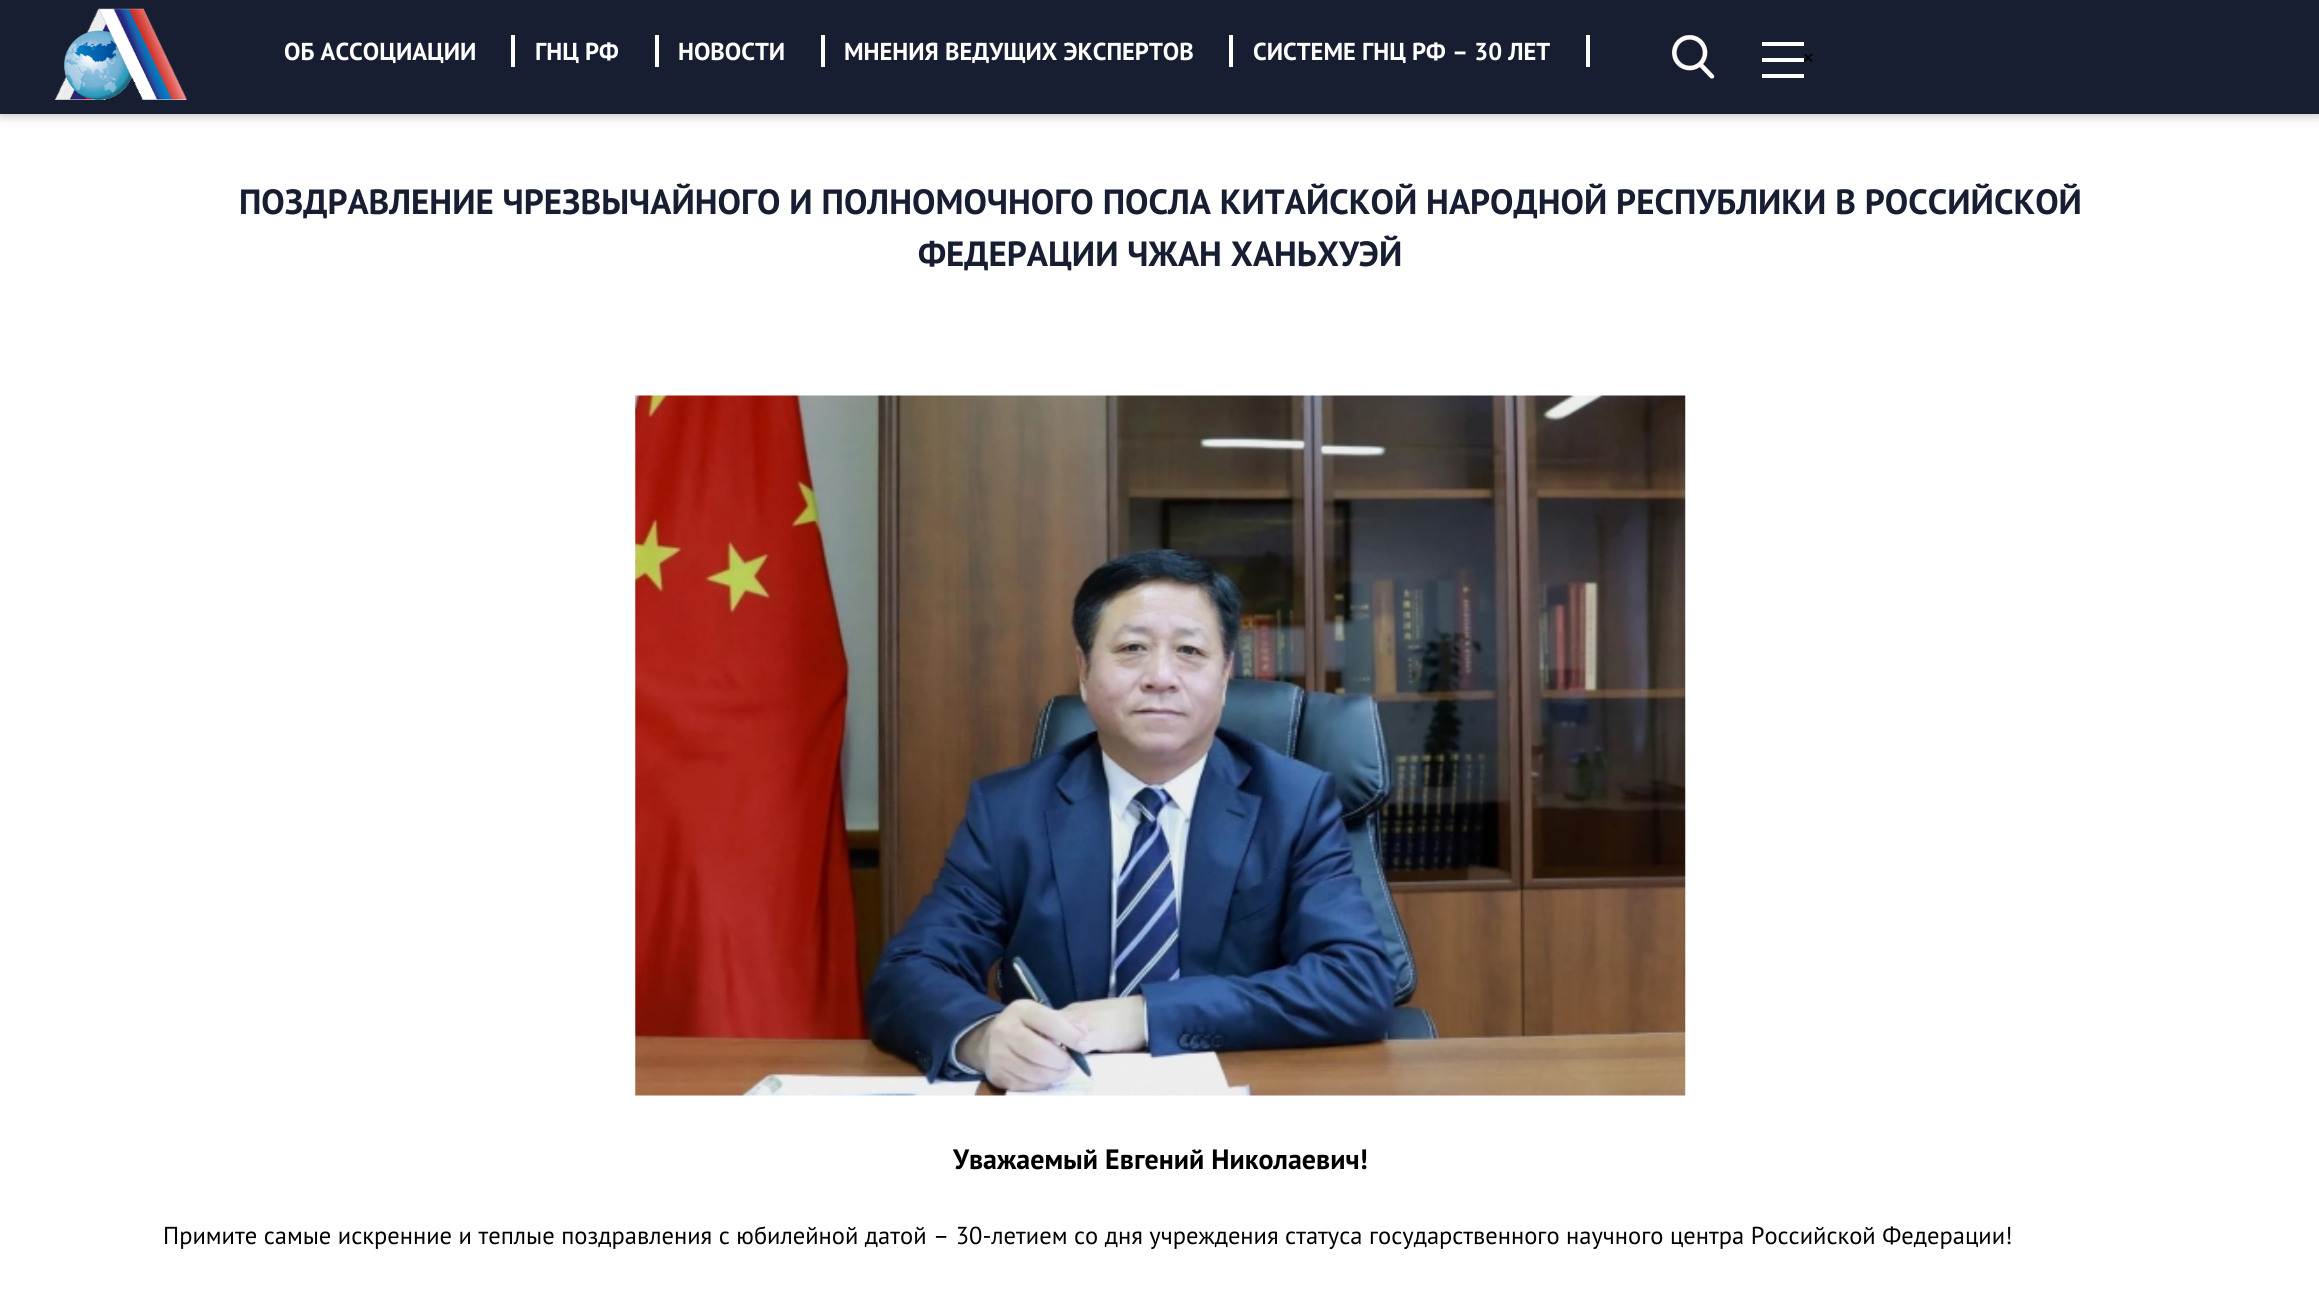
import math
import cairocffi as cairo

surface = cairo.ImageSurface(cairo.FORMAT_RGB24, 2319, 1307)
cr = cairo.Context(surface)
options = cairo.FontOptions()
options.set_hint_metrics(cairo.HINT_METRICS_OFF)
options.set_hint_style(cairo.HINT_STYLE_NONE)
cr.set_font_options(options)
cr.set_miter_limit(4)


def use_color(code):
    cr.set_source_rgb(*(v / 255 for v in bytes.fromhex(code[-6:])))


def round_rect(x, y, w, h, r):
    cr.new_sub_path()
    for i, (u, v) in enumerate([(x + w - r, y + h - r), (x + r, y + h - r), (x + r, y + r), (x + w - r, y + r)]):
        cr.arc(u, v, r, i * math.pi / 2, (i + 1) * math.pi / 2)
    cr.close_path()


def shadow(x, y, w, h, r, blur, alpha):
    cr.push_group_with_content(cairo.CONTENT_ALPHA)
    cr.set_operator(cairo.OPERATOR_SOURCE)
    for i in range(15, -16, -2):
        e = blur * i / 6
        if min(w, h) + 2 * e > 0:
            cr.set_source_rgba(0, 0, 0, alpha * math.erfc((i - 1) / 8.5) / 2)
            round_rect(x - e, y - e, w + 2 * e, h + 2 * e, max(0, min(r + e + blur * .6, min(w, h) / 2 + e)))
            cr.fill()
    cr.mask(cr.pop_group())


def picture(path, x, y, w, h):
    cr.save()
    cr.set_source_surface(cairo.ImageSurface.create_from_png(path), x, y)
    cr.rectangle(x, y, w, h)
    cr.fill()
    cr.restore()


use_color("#ffffff")
cr.paint()
use_color("#000000")
shadow(0, 4, 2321, 113, 0, 4.5, 0.2)
use_color("#181e32")
cr.rectangle(0, 0, 2319, 114)
cr.fill()
picture("img1.png", 54, 8, 133, 92)
cr.select_font_face("PT Sans", cairo.FONT_SLANT_NORMAL, cairo.FONT_WEIGHT_BOLD)
cr.set_font_size(24.5)
use_color("#ffffff")
cr.move_to(284, 60)
cr.show_text("ОБ AССОЦИАЦИИ")
cr.rectangle(511, 35, 4, 32)
cr.fill()
cr.move_to(535, 60)
cr.show_text("ГНЦ РФ")
cr.rectangle(655, 35, 4, 32)
cr.fill()
cr.move_to(678, 60)
cr.show_text("НОВОСТИ")
cr.rectangle(821, 35, 4, 32)
cr.fill()
cr.move_to(844, 60)
cr.show_text("МНЕНИЯ ВЕДУЩИХ ЭКСПЕРТОВ")
cr.rectangle(1229, 35, 4, 32)
cr.fill()
cr.move_to(1253, 60)
cr.show_text("СИСТЕМЕ ГНЦ РФ – 30 ЛЕТ")
cr.rectangle(1586, 35, 4, 32)
cr.fill()
picture("img2.png", 1672, 35, 43, 44)
cr.rectangle(1762, 42, 42, 4)
cr.fill()
cr.select_font_face("PT Sans")
use_color("#000000")
cr.move_to(1802, 66)
cr.show_text("×")
use_color("#ffffff")
cr.rectangle(1762, 58, 42, 4)
cr.fill()
cr.rectangle(1762, 74, 42, 4)
cr.fill()
cr.select_font_face("PT Sans", cairo.FONT_SLANT_NORMAL, cairo.FONT_WEIGHT_BOLD)
cr.set_font_size(35)
use_color("#181e32")
cr.move_to(239, 214)
cr.show_text("ПОЗДРАВЛЕНИЕ ЧРЕЗВЫЧАЙНОГО И ПОЛНОМОЧНОГО ПОСЛА КИТАЙСКОЙ НАРОДНОЙ РЕСПУБЛИКИ В РОССИЙСКОЙ")
cr.move_to(918, 266)
cr.show_text("ФЕДЕРАЦИИ ЧЖАН ХАНЬХУЭЙ")
picture("img3.png", 635, 395, 1051, 701)
cr.set_font_size(28)
use_color("#000000")
cr.move_to(953, 1169)
cr.show_text("Уважаемый Евгений Николаевич!")
cr.select_font_face("PT Sans")
cr.set_font_size(24.5)
cr.move_to(163, 1244)
cr.show_text("Примите самые искренние и теплые поздравления с юбилейной датой – 30-летием со дня учреждения статуса государственного научного центра Российской Федерации!")
surface.write_to_png("result.png")
